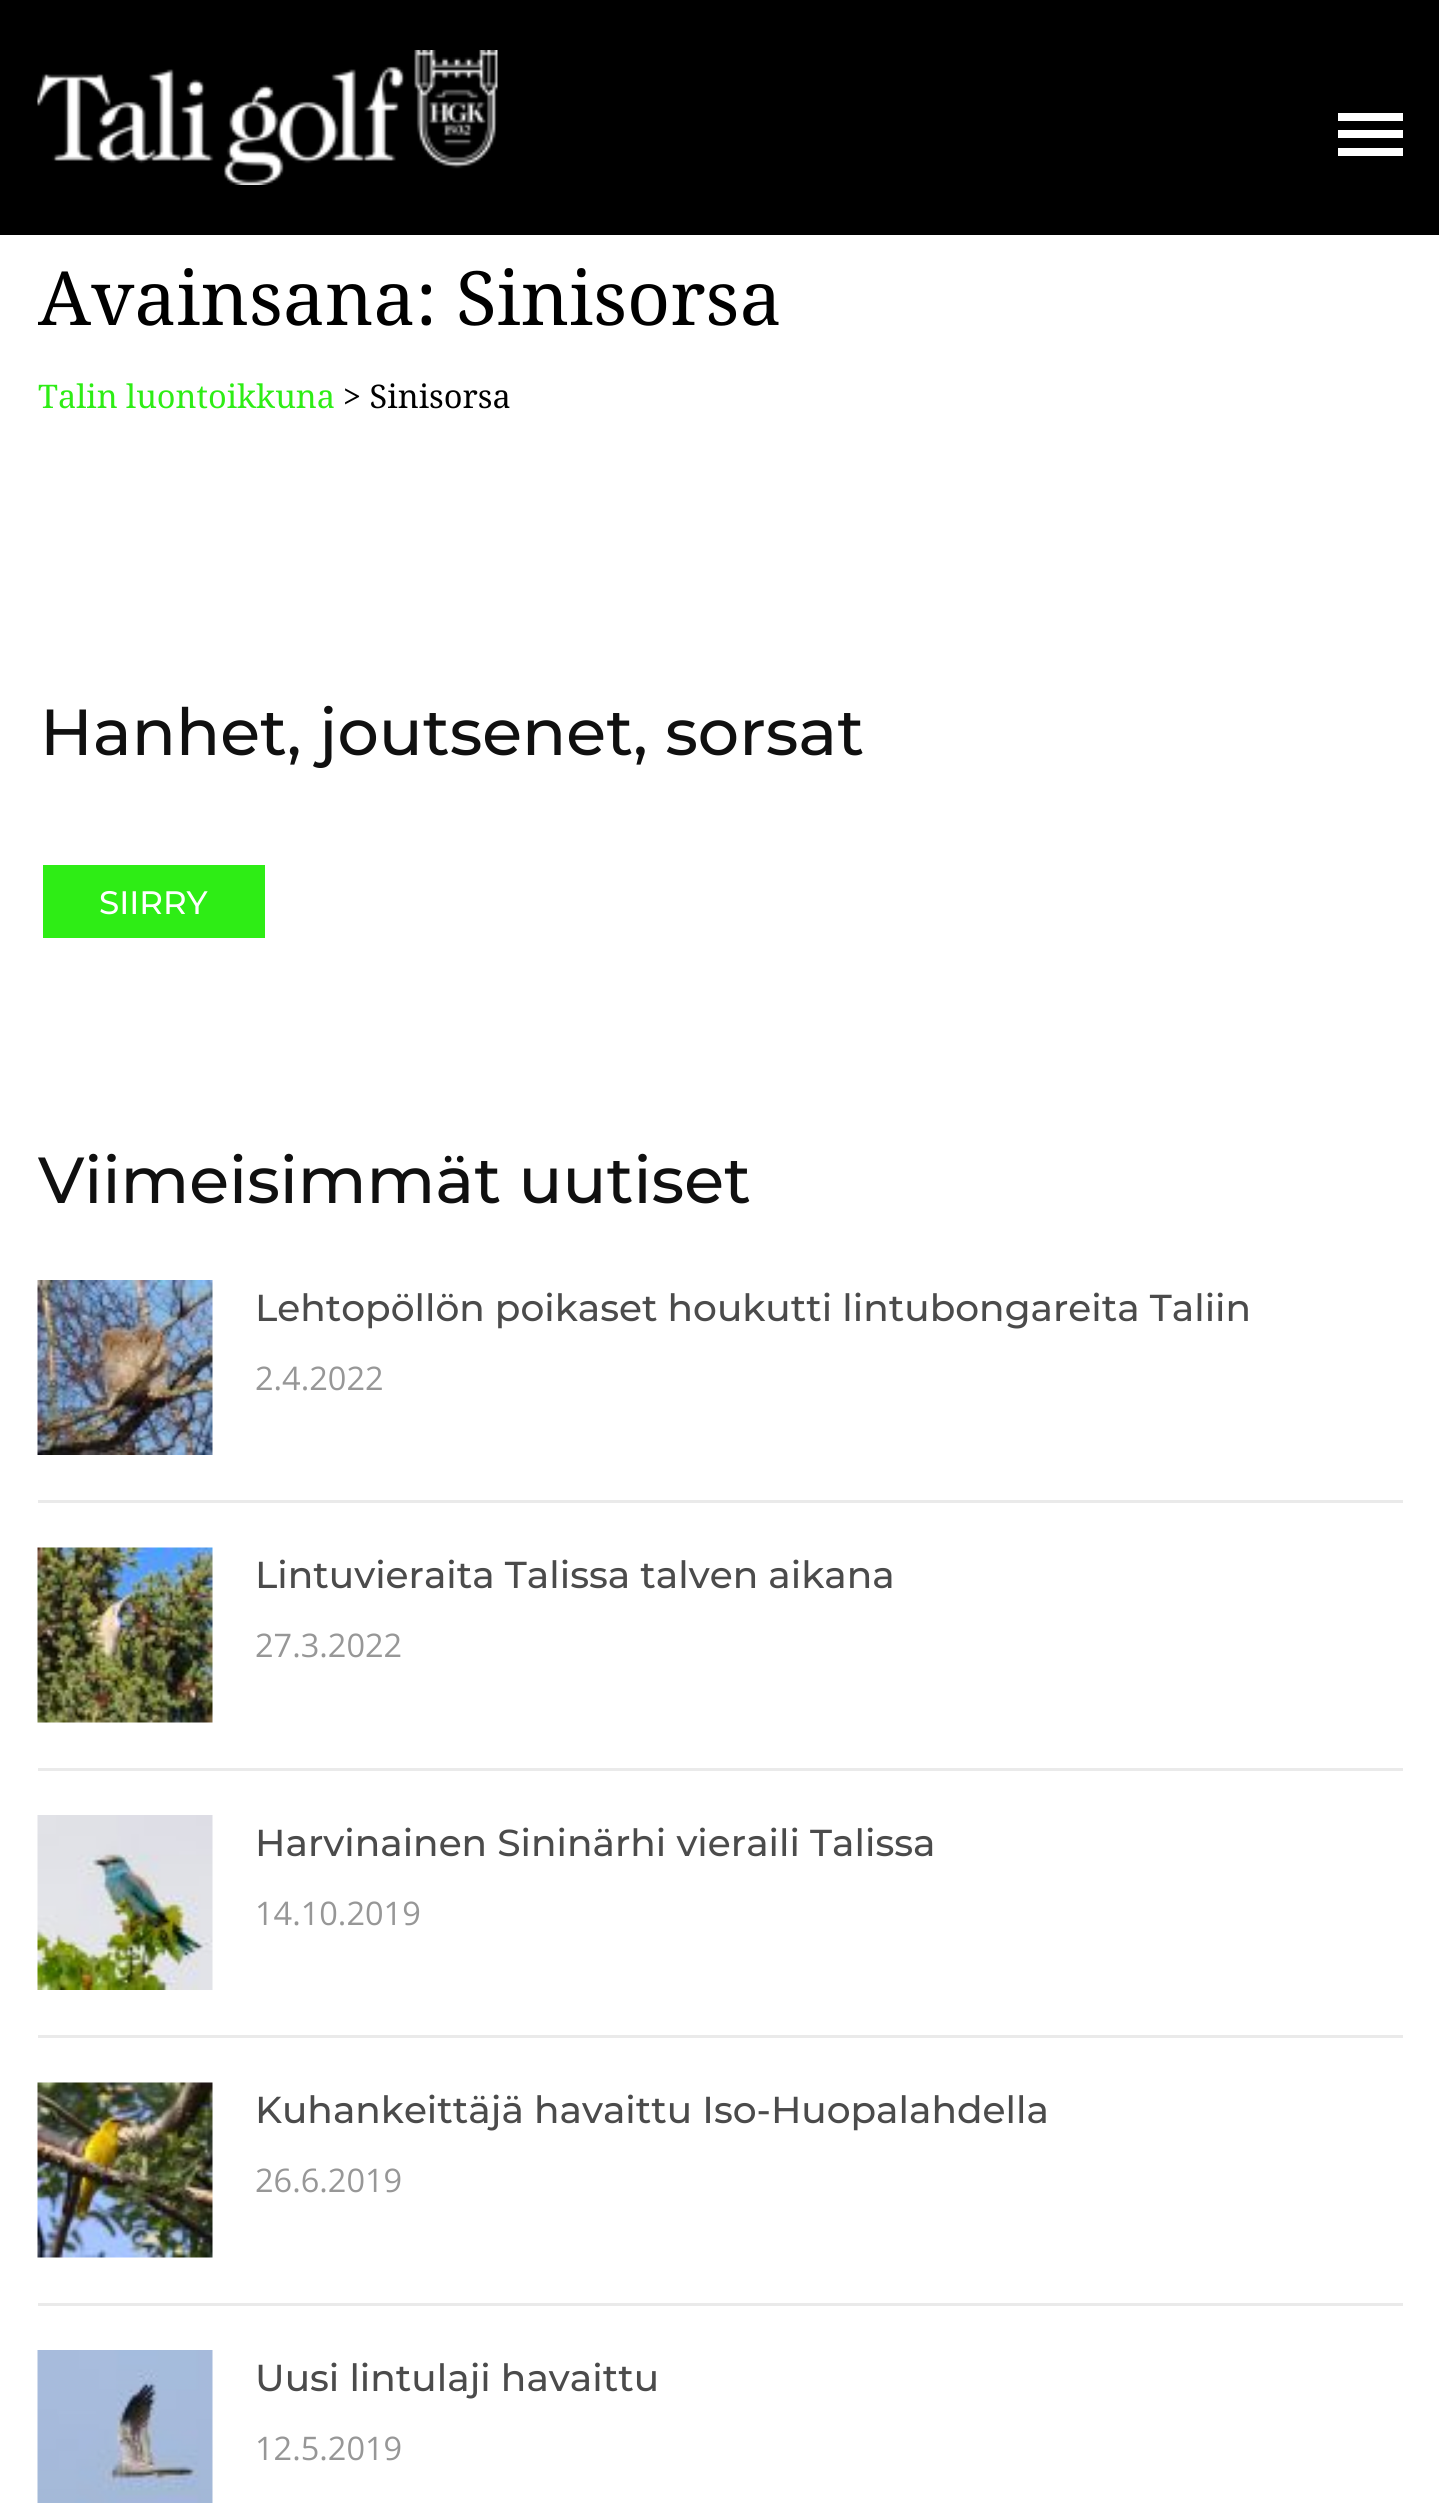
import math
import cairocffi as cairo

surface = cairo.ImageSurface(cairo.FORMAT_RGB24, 1439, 2503)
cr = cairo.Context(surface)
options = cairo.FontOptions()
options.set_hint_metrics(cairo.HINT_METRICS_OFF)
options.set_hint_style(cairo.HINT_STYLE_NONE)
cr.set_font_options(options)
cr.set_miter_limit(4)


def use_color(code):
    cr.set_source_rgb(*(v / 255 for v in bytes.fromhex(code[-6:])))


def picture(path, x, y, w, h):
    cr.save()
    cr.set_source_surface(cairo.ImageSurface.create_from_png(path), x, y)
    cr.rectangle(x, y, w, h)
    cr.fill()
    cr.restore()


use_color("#ffffff")
cr.paint()
use_color("#000000")
cr.rectangle(0, 0, 1439, 235)
cr.fill()
picture("img1.png", 37, 50, 461, 135)
use_color("#ffffff")
cr.rectangle(1338, 113, 65, 8)
cr.fill()
cr.rectangle(1338, 130, 65, 8)
cr.fill()
cr.rectangle(1338, 148, 65, 8)
cr.fill()
cr.save()
cr.rectangle(38, 0, 1365, 495)
cr.clip()
cr.select_font_face("Droid Serif")
cr.set_font_size(75)
use_color("#000000")
cr.move_to(38, 325)
cr.show_text("Avainsana:")
cr.restore()
cr.select_font_face("Droid Serif")
cr.set_font_size(75)
use_color("#000000")
cr.move_to(456, 325)
cr.show_text("Sinisorsa")
cr.set_font_size(32.5)
use_color("#2eed15")
cr.move_to(38, 408)
cr.show_text("Talin luontoikkuna")
use_color("#000000")
cr.move_to(343, 408)
cr.show_text("> Sinisorsa")
cr.select_font_face("Montserrat Medium")
cr.set_font_size(65)
use_color("#101010")
cr.move_to(40, 755)
cr.show_text("Hanhet, joutsenet, sorsat")
use_color("#2eed15")
cr.rectangle(43, 865, 222, 73)
cr.fill()
cr.set_font_size(32.5)
use_color("#ffffff")
cr.move_to(99, 914)
cr.show_text("SIIRRY")
cr.set_font_size(65)
use_color("#101010")
cr.move_to(38, 1203)
cr.show_text("Viimeisimmät uutiset")
picture("img2.png", 37, 1280, 176, 175)
cr.set_font_size(37.5)
use_color("#4b4b4b")
cr.move_to(255, 1321)
cr.show_text("Lehtopöllön poikaset houkutti lintubongareita Taliin")
cr.select_font_face("Open Sans")
cr.set_font_size(32.5)
use_color("#979797")
cr.move_to(255, 1390)
cr.show_text("2.4.2022")
use_color("#eaeaea")
cr.rectangle(38, 1500, 1365, 3)
cr.fill()
picture("img3.png", 37, 1547, 176, 176)
cr.select_font_face("Montserrat Medium")
cr.set_font_size(37.5)
use_color("#4b4b4b")
cr.move_to(255, 1588)
cr.show_text("Lintuvieraita Talissa talven aikana")
cr.select_font_face("Open Sans")
cr.set_font_size(32.5)
use_color("#979797")
cr.move_to(255, 1657)
cr.show_text("27.3.2022")
use_color("#eaeaea")
cr.rectangle(38, 1768, 1365, 3)
cr.fill()
picture("img4.png", 37, 1815, 176, 175)
cr.select_font_face("Montserrat Medium")
cr.set_font_size(37.5)
use_color("#4b4b4b")
cr.move_to(255, 1856)
cr.show_text("Harvinainen Sininärhi vieraili Talissa")
cr.select_font_face("Open Sans")
cr.set_font_size(32.5)
use_color("#979797")
cr.move_to(255, 1925)
cr.show_text("14.10.2019")
use_color("#eaeaea")
cr.rectangle(38, 2035, 1365, 3)
cr.fill()
picture("img5.png", 37, 2082, 176, 176)
cr.select_font_face("Montserrat Medium")
cr.set_font_size(37.5)
use_color("#4b4b4b")
cr.move_to(255, 2123)
cr.show_text("Kuhankeittäjä havaittu Iso-Huopalahdella")
cr.select_font_face("Open Sans")
cr.set_font_size(32.5)
use_color("#979797")
cr.move_to(255, 2192)
cr.show_text("26.6.2019")
use_color("#eaeaea")
cr.rectangle(38, 2303, 1365, 3)
cr.fill()
picture("img6.png", 37, 2350, 176, 153)
cr.select_font_face("Montserrat Medium")
cr.set_font_size(37.5)
use_color("#4b4b4b")
cr.move_to(255, 2391)
cr.show_text("Uusi lintulaji havaittu")
cr.select_font_face("Open Sans")
cr.set_font_size(32.5)
use_color("#979797")
cr.move_to(255, 2460)
cr.show_text("12.5.2019")
surface.write_to_png("result.png")
